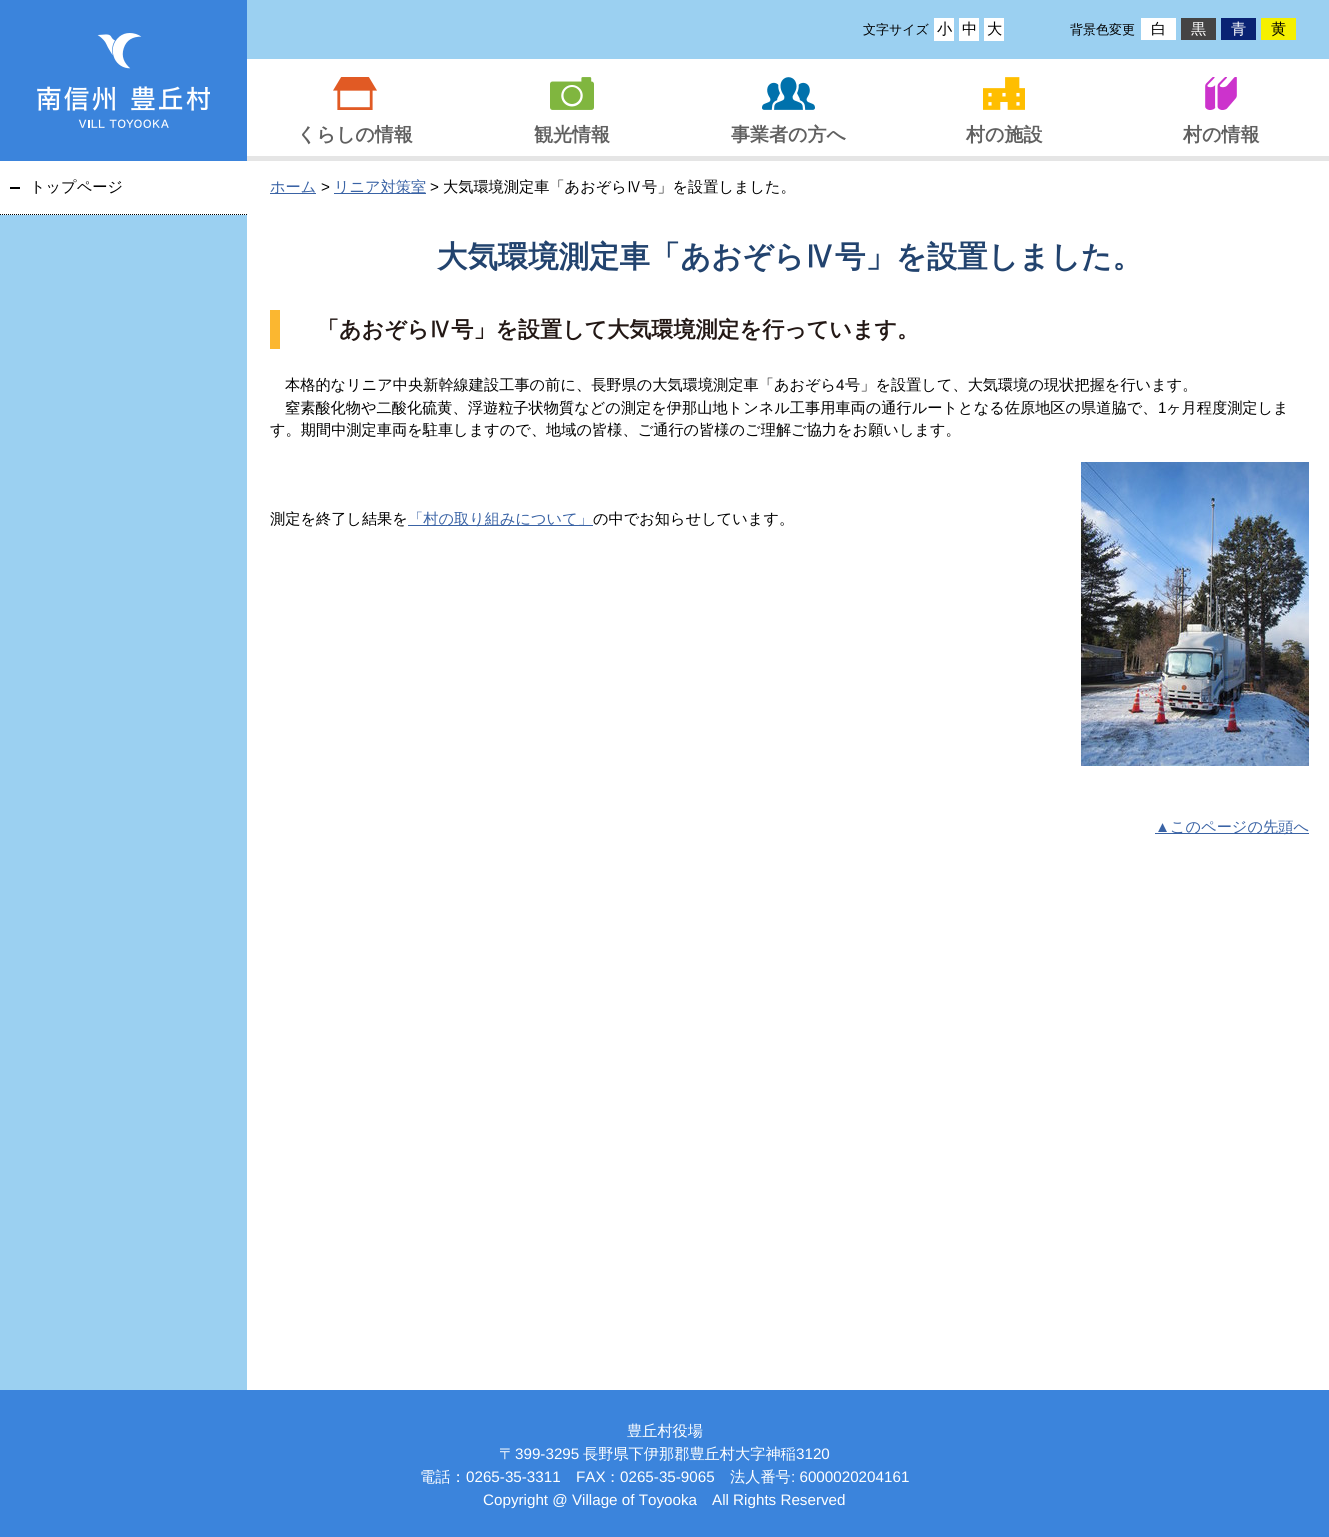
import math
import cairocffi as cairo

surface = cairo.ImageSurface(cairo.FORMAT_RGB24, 1329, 1537)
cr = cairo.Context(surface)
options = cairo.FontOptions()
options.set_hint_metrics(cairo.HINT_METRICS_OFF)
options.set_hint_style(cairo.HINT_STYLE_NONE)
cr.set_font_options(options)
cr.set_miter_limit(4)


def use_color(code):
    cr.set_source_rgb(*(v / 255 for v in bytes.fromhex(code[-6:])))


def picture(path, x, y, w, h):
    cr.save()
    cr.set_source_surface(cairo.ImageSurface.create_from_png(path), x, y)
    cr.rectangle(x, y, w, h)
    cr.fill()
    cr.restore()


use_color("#9bd0f1")
cr.paint()
use_color("#3b84dc")
cr.rectangle(0, 0, 247, 161)
cr.fill()
picture("img1.png", 37, 33, 173, 95)
cr.select_font_face("WenQuanYi Zen Hei Medium")
cr.set_font_size(13)
use_color("#000000")
cr.move_to(863, 34)
cr.show_text("文字サイズ")
use_color("#ffffff")
cr.rectangle(934, 18, 20, 23)
cr.fill()
cr.set_font_size(15.2)
use_color("#000000")
cr.move_to(937, 34)
cr.show_text("小")
use_color("#ffffff")
cr.rectangle(959, 18, 20, 23)
cr.fill()
use_color("#000000")
cr.move_to(962, 34)
cr.show_text("中")
use_color("#ffffff")
cr.rectangle(984, 18, 20, 23)
cr.fill()
use_color("#000000")
cr.move_to(987, 34)
cr.show_text("大")
cr.set_font_size(13)
cr.move_to(1070, 34)
cr.show_text("背景色変更")
use_color("#ffffff")
cr.rectangle(1141, 18, 35, 22)
cr.fill()
cr.set_font_size(15.2)
use_color("#000000")
cr.move_to(1151, 34)
cr.show_text("白")
use_color("#454444")
cr.rectangle(1181, 18, 35, 22)
cr.fill()
use_color("#ffffff")
cr.move_to(1191, 34)
cr.show_text("黒")
use_color("#0a2273")
cr.rectangle(1221, 18, 35, 22)
cr.fill()
use_color("#ffffff")
cr.move_to(1231, 34)
cr.show_text("青")
use_color("#f5f000")
cr.rectangle(1261, 18, 35, 22)
cr.fill()
use_color("#000000")
cr.move_to(1271, 34)
cr.show_text("黄")
use_color("#ffffff")
cr.rectangle(247, 59, 1082, 97)
cr.fill()
use_color("#e5e5e5")
cr.rectangle(247, 156, 1082, 5)
cr.fill()
picture("img2.png", 333, 77, 44, 33)
cr.select_font_face("WenQuanYi Zen Hei", cairo.FONT_SLANT_NORMAL, cairo.FONT_WEIGHT_BOLD)
cr.set_font_size(19)
use_color("#606060")
cr.move_to(297, 141)
cr.show_text("くらしの情報")
picture("img3.png", 550, 77, 44, 33)
cr.move_to(534, 141)
cr.show_text("観光情報")
picture("img4.png", 762, 77, 53, 33)
cr.move_to(731, 141)
cr.show_text("事業者の方へ")
picture("img5.png", 983, 77, 42, 33)
cr.move_to(966, 141)
cr.show_text("村の施設")
picture("img6.png", 1205, 77, 32, 33)
cr.move_to(1183, 141)
cr.show_text("村の情報")
use_color("#ffffff")
cr.rectangle(0, 161, 247, 54)
cr.fill()
cr.new_path()
cr.move_to(0, 214.5)
cr.line_to(247, 214.5)
use_color("#000000")
cr.set_line_width(1)
cr.set_dash([1, 1])
cr.stroke()
cr.rectangle(10, 187, 10, 2)
cr.fill()
cr.select_font_face("WenQuanYi Zen Hei Medium")
cr.set_font_size(15.2)
cr.move_to(30, 192)
cr.show_text("トップページ")
use_color("#ffffff")
cr.rectangle(247, 161, 1082, 1229)
cr.fill()
use_color("#3a63a5")
cr.rectangle(270, 193, 46, 1)
cr.fill()
cr.move_to(270, 192)
cr.show_text("ホーム")
cr.select_font_face("Liberation Sans")
use_color("#000000")
cr.move_to(321, 192)
cr.show_text(">")
use_color("#3a63a5")
cr.rectangle(334, 193, 92, 1)
cr.fill()
cr.select_font_face("WenQuanYi Zen Hei Medium")
cr.move_to(334, 192)
cr.show_text("リニア対策室")
cr.select_font_face("Liberation Sans")
use_color("#000000")
cr.move_to(430, 192)
cr.show_text(">")
cr.select_font_face("WenQuanYi Zen Hei Medium")
cr.move_to(443, 192)
cr.show_text("大気環境測定車「あおぞらⅣ号」を設置しました。")
cr.select_font_face("WenQuanYi Zen Hei", cairo.FONT_SLANT_NORMAL, cairo.FONT_WEIGHT_BOLD)
cr.set_font_size(30.4)
use_color("#22436e")
cr.move_to(437, 267)
cr.show_text("大気環境測定車「あおぞらⅣ号」を設置しました。")
use_color("#fbb730")
cr.rectangle(270, 310, 10, 39)
cr.fill()
cr.set_font_size(22.05)
use_color("#231815")
cr.move_to(317, 337)
cr.show_text("「あおぞらⅣ号」を設置して大気環境測定を行っています。")
cr.select_font_face("WenQuanYi Zen Hei Medium")
cr.set_font_size(15.2)
use_color("#000000")
cr.move_to(285, 390)
cr.show_text("本格的なリニア中央新幹線建設工事の前に、長野県の大気環境測定車「あおぞら")
cr.select_font_face("Liberation Sans")
cr.move_to(836, 390)
cr.show_text("4")
cr.select_font_face("WenQuanYi Zen Hei Medium")
cr.move_to(845, 390)
cr.show_text("号」を設置して、大気環境の現状把握を行います。")
cr.move_to(285, 413)
cr.show_text("窒素酸化物や二酸化硫黄、浮遊粒子状物質などの測定を伊那山地トンネル工事用車両の通行ルートとなる佐原地区の県道脇で、")
cr.select_font_face("Liberation Sans")
cr.move_to(1158, 413)
cr.show_text("1")
cr.select_font_face("WenQuanYi Zen Hei Medium")
cr.move_to(1166, 413)
cr.show_text("ヶ月程度測定しま")
cr.move_to(270, 435)
cr.show_text("す。期間中測定車両を駐車しますので、地域の皆様、ご通行の皆様のご理解ご協力をお願いします。")
cr.move_to(270, 524)
cr.show_text("測定を終了し結果を")
use_color("#3a63a5")
cr.rectangle(408, 525, 185, 1)
cr.fill()
cr.move_to(408, 524)
cr.show_text("「村の取り組みについて」")
use_color("#000000")
cr.move_to(593, 524)
cr.show_text("の中でお知らせしています。")
picture("img7.png", 1081, 462, 228, 304)
cr.select_font_face("Liberation Sans")
use_color("#3a63a5")
cr.move_to(1155, 832)
cr.show_text("▲")
cr.rectangle(1155, 833, 154, 1)
cr.fill()
cr.select_font_face("WenQuanYi Zen Hei Medium")
cr.move_to(1170, 832)
cr.show_text("このページの先頭へ")
use_color("#3b84dc")
cr.rectangle(0, 1390, 1329, 147)
cr.fill()
use_color("#ffffff")
cr.move_to(627, 1436)
cr.show_text("豊丘村役場")
cr.move_to(499, 1459)
cr.show_text("〒")
cr.select_font_face("Liberation Sans")
cr.move_to(515, 1459)
cr.show_text("399-3295")
cr.select_font_face("WenQuanYi Zen Hei Medium")
cr.move_to(583, 1459)
cr.show_text("長野県下伊那郡豊丘村大字神稲")
cr.select_font_face("Liberation Sans")
cr.move_to(796, 1459)
cr.show_text("3120")
cr.select_font_face("WenQuanYi Zen Hei Medium")
cr.move_to(420, 1482)
cr.show_text("電話：")
cr.select_font_face("Liberation Sans")
cr.move_to(466, 1482)
cr.show_text("0265-35-3311")
cr.move_to(576, 1482)
cr.show_text("FAX")
cr.select_font_face("WenQuanYi Zen Hei Medium")
cr.move_to(605, 1482)
cr.show_text("：")
cr.select_font_face("Liberation Sans")
cr.move_to(620, 1482)
cr.show_text("0265-35-9065")
cr.select_font_face("WenQuanYi Zen Hei Medium")
cr.move_to(730, 1482)
cr.show_text("法人番号")
cr.select_font_face("Liberation Sans")
cr.move_to(791, 1482)
cr.show_text(": 6000020204161")
cr.move_to(483, 1505)
cr.show_text("Copyright @ Village of Toyooka")
cr.move_to(712, 1505)
cr.show_text("All Rights Reserved")
surface.write_to_png("result.png")
